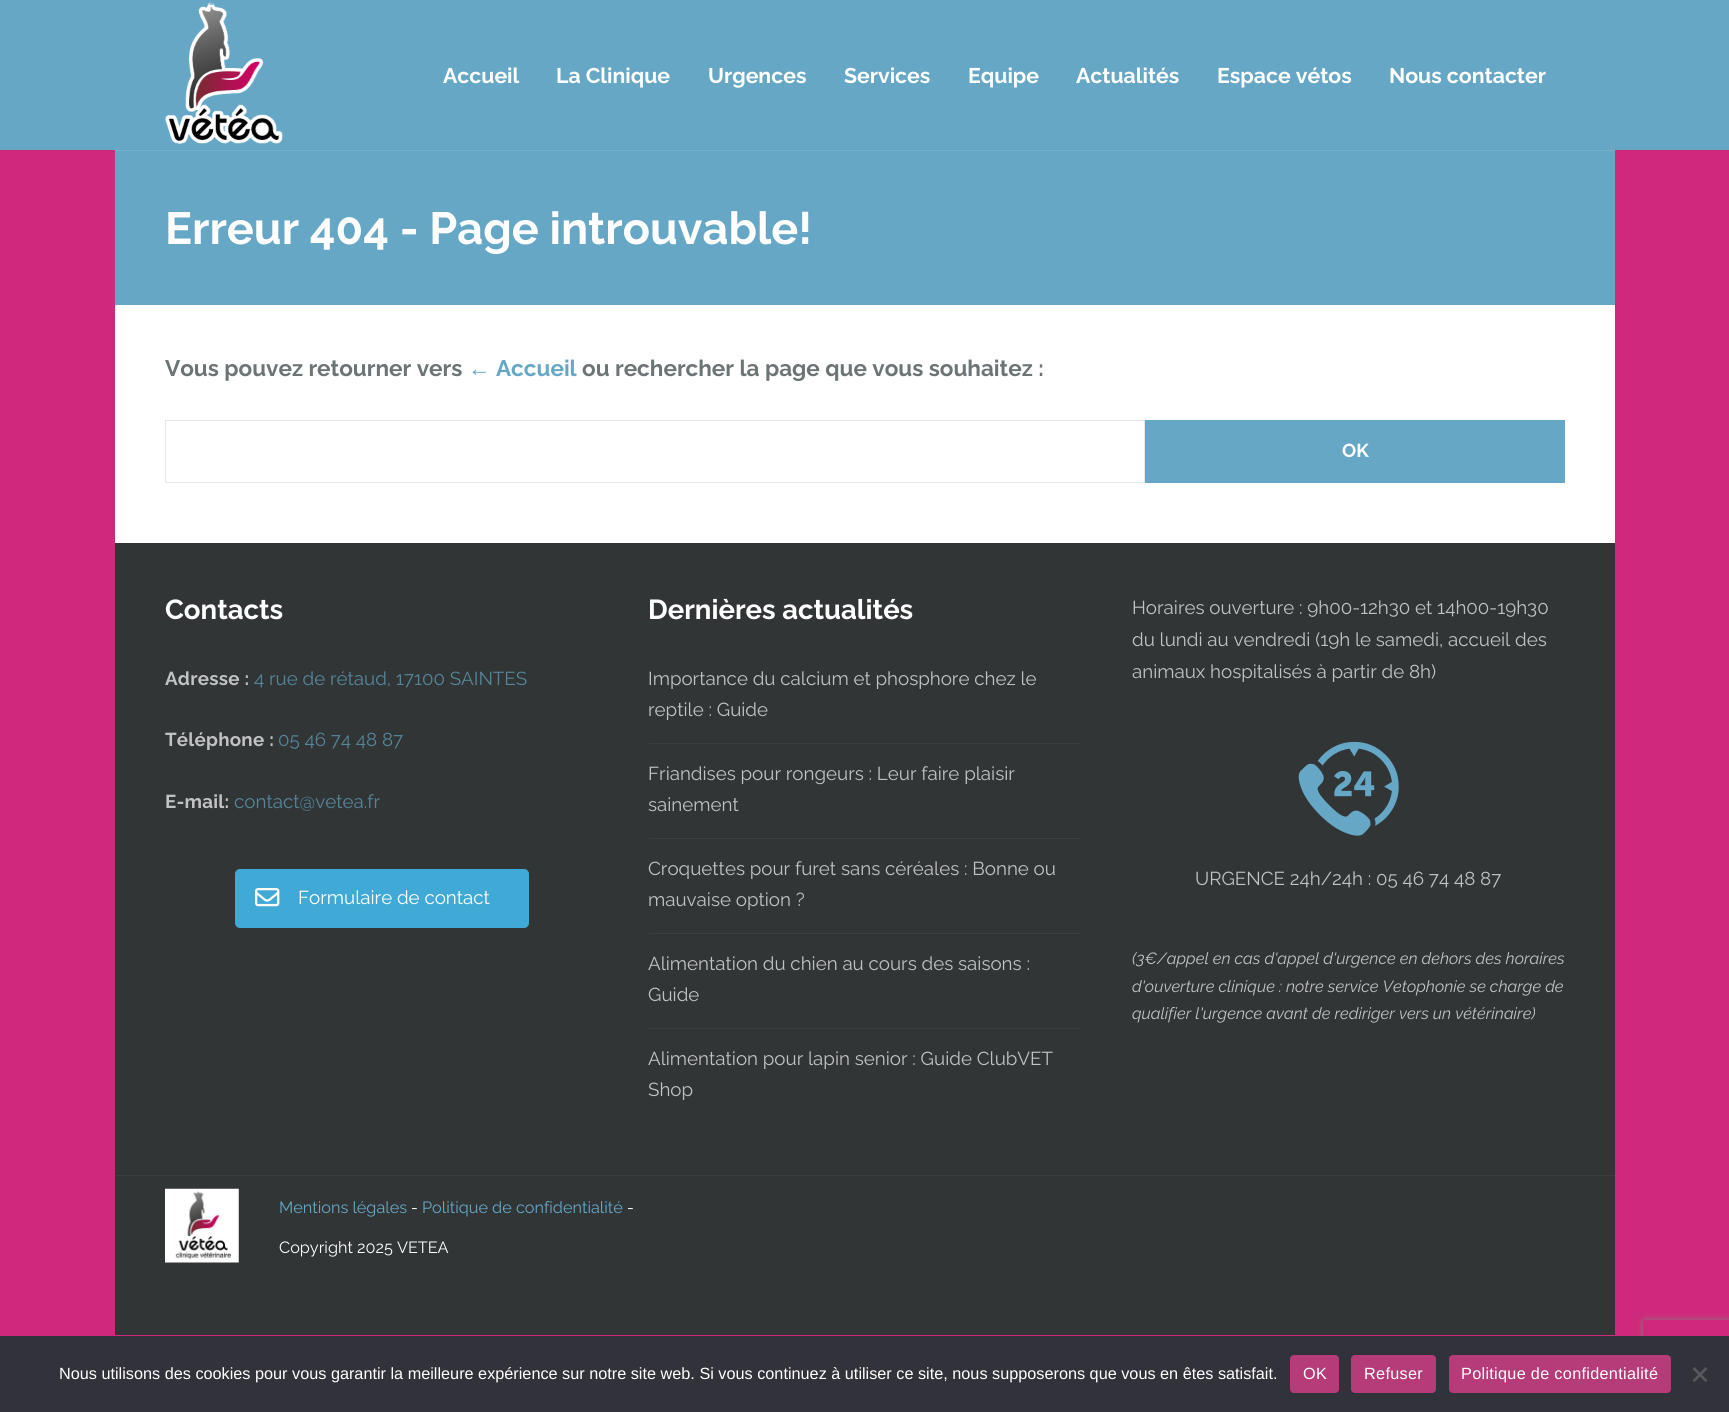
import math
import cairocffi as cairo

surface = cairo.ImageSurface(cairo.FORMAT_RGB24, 1729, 1412)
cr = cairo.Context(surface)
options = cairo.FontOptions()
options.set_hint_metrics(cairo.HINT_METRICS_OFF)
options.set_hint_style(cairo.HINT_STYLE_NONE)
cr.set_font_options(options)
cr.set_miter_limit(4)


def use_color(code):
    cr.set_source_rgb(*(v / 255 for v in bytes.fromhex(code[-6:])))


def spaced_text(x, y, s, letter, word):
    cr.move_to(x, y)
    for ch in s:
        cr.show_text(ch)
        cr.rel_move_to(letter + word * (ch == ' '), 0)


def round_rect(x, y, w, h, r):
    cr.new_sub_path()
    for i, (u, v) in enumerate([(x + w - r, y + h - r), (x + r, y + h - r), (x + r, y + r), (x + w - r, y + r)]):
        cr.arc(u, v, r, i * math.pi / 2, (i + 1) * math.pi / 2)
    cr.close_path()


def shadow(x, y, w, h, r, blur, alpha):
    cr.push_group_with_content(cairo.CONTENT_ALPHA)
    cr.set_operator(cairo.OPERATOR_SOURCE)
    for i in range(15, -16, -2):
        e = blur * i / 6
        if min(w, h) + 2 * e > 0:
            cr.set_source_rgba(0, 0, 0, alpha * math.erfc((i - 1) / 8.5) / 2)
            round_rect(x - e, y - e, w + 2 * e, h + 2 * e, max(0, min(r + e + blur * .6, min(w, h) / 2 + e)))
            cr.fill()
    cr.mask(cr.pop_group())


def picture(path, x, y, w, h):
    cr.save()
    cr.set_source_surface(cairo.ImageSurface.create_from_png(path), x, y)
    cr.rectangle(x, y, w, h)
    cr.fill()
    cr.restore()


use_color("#ce297b")
cr.paint()
use_color("#66a7c5")
cr.rectangle(0, 0, 1729, 150)
cr.fill()
picture("img1.png", 165, 2, 118, 142)
cr.select_font_face("Raleway", cairo.FONT_SLANT_NORMAL, cairo.FONT_WEIGHT_BOLD)
cr.set_font_size(21.25)
use_color("#ffffff")
cr.move_to(443, 83)
cr.show_text("Accueil")
cr.move_to(556, 83)
cr.show_text("La Clinique")
cr.move_to(708, 83)
cr.show_text("Urgences")
cr.move_to(844, 83)
cr.show_text("Services")
cr.move_to(968, 83)
cr.show_text("Equipe")
cr.move_to(1076, 83)
cr.show_text("Actualités")
cr.move_to(1217, 83)
cr.show_text("Espace vétos")
cr.move_to(1389, 83)
cr.show_text("Nous contacter")
use_color("#66a7c5")
cr.rectangle(115, 151, 1500, 154)
cr.fill()
use_color("#75b0cb")
cr.rectangle(115, 150, 1500, 1)
cr.fill()
cr.set_font_size(45)
use_color("#ffffff")
cr.move_to(165, 244)
cr.show_text("Erreur 404 - Page introuvable!")
cr.rectangle(115, 305, 1500, 238)
cr.fill()
cr.set_font_size(22.5)
use_color("#6c7476")
cr.move_to(165, 376)
cr.show_text("Vous pouvez retourner vers")
cr.select_font_face("Liberation Sans", cairo.FONT_SLANT_NORMAL, cairo.FONT_WEIGHT_BOLD)
use_color("#66a7c5")
cr.move_to(468, 376)
cr.show_text("←")
cr.select_font_face("Raleway", cairo.FONT_SLANT_NORMAL, cairo.FONT_WEIGHT_BOLD)
cr.move_to(496, 376)
cr.show_text("Accueil")
use_color("#6c7476")
cr.move_to(582, 376)
cr.show_text("ou rechercher la page que vous souhaitez :")
cr.rectangle(165.5, 420.5, 979, 62)
use_color("#e6e6e6")
cr.set_line_width(1)
cr.stroke()
use_color("#66a7c5")
cr.rectangle(1145, 420, 420, 63)
cr.fill()
cr.set_font_size(18.75)
use_color("#ffffff")
cr.move_to(1342, 457)
cr.show_text("OK")
use_color("#313536")
cr.rectangle(115, 543, 1500, 792)
cr.fill()
use_color("#3b3f40")
cr.rectangle(115, 1175, 1500, 1)
cr.fill()
cr.set_font_size(27.5)
use_color("#ffffff")
cr.move_to(165, 619)
cr.show_text("Contacts")
cr.set_font_size(18.75)
use_color("#c1c2c3")
spaced_text(165, 685, "Adresse :", 0.25, 0)
cr.select_font_face("Raleway")
use_color("#56859a")
cr.move_to(254, 685)
cr.show_text("4 rue de rétaud, 17100 SAINTES")
cr.select_font_face("Raleway", cairo.FONT_SLANT_NORMAL, cairo.FONT_WEIGHT_BOLD)
use_color("#c1c2c3")
spaced_text(165, 746, "Téléphone :", 0.25, 0)
cr.select_font_face("Raleway")
use_color("#56859a")
cr.move_to(278, 746)
cr.show_text("05 46 74 48 87")
cr.select_font_face("Raleway", cairo.FONT_SLANT_NORMAL, cairo.FONT_WEIGHT_BOLD)
use_color("#c1c2c3")
spaced_text(165, 808, "E-mail:", 0.25, 0)
cr.select_font_face("Raleway")
use_color("#56859a")
cr.move_to(234, 808)
cr.show_text("contact@vetea.fr")
use_color("#41a9d5")
round_rect(235.5, 869.5, 293, 58, 4.5)
cr.fill_preserve()
cr.stroke()
picture("img2.png", 255, 888, 25, 19)
use_color("#ffffff")
cr.move_to(298, 904)
cr.show_text("Formulaire de contact")
cr.select_font_face("Raleway", cairo.FONT_SLANT_NORMAL, cairo.FONT_WEIGHT_BOLD)
cr.set_font_size(27.5)
cr.move_to(648, 619)
cr.show_text("Dernières actualités")
use_color("#3b3f40")
cr.rectangle(649, 743, 432, 1)
cr.fill()
cr.select_font_face("Raleway")
cr.set_font_size(18.75)
use_color("#c1c2c3")
cr.move_to(648, 685)
cr.show_text("Importance du calcium et phosphore chez le")
cr.move_to(648, 716)
cr.show_text("reptile : Guide")
use_color("#3b3f40")
cr.rectangle(649, 838, 432, 1)
cr.fill()
use_color("#c1c2c3")
cr.move_to(648, 780)
cr.show_text("Friandises pour rongeurs : Leur faire plaisir")
cr.move_to(648, 811)
cr.show_text("sainement")
use_color("#3b3f40")
cr.rectangle(649, 933, 432, 1)
cr.fill()
use_color("#c1c2c3")
cr.move_to(648, 875)
cr.show_text("Croquettes pour furet sans céréales : Bonne ou")
cr.move_to(648, 906)
cr.show_text("mauvaise option ?")
use_color("#3b3f40")
cr.rectangle(649, 1028, 432, 1)
cr.fill()
use_color("#c1c2c3")
cr.move_to(648, 970)
cr.show_text("Alimentation du chien au cours des saisons :")
cr.move_to(648, 1001)
cr.show_text("Guide")
cr.move_to(648, 1065)
cr.show_text("Alimentation pour lapin senior : Guide ClubVET")
cr.move_to(648, 1096)
cr.show_text("Shop")
cr.move_to(1132, 614)
cr.show_text("Horaires ouverture : 9h00-12h30 et 14h00-19h30")
cr.move_to(1132, 646)
cr.show_text("du lundi au vendredi (19h le samedi, accueil des")
cr.move_to(1132, 678)
cr.show_text("animaux hospitalisés à partir de 8h)")
picture("img3.png", 1298, 741, 101, 95)
cr.move_to(1195, 885)
cr.show_text("URGENCE 24h/24h : 05 46 74 48 87")
cr.select_font_face("Raleway Thin", cairo.FONT_SLANT_ITALIC)
cr.set_font_size(16.25)
cr.move_to(1132, 964)
cr.show_text("(3€/appel en cas d'appel d'urgence en dehors des horaires")
cr.move_to(1132, 992)
cr.show_text("d'ouverture clinique : notre service Vetophonie se charge de")
cr.move_to(1132, 1019)
cr.show_text("qualifier l'urgence avant de rediriger vers un vétérinaire)")
picture("img4.png", 165, 1188, 74, 75)
cr.select_font_face("Raleway")
use_color("#66a7c5")
cr.move_to(279, 1213)
cr.show_text("Mentions légales")
use_color("#ffffff")
cr.move_to(411, 1213)
cr.show_text("-")
use_color("#66a7c5")
cr.move_to(422, 1213)
cr.show_text("Politique de confidentialité")
use_color("#ffffff")
cr.move_to(627, 1213)
cr.show_text("-")
cr.move_to(279, 1253)
cr.show_text("Copyright 2025 VETEA")
cr.save()
cr.set_fill_rule(cairo.FILL_RULE_EVEN_ODD)
cr.new_path()
cr.move_to(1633, 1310)
cr.line_to(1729, 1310)
cr.line_to(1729, 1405)
cr.line_to(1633, 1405)
cr.close_path()
cr.move_to(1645.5, 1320)
cr.line_to(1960.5, 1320)
cr.curve_to(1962, 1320, 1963, 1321, 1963, 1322.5)
cr.line_to(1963, 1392.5)
cr.curve_to(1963, 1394, 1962, 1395, 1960.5, 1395)
cr.line_to(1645.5, 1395)
cr.curve_to(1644, 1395, 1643, 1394, 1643, 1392.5)
cr.line_to(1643, 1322.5)
cr.curve_to(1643, 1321, 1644, 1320, 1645.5, 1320)
cr.close_path()
cr.clip()
use_color("#808080")
shadow(1643, 1320, 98, 75, 2.5, 3, 1)
cr.restore()
use_color("#32323a")
cr.rectangle(0, 1336, 1729, 76)
cr.fill()
cr.select_font_face("Liberation Sans")
use_color("#ffffff")
cr.move_to(59, 1379)
cr.show_text("Nous utilisons des cookies pour vous garantir la meilleure expérience sur notre site web. Si vous continuez à utiliser ce site, nous supposerons que vous en êtes satisfait.")
use_color("#b53b79")
round_rect(1290, 1355, 49, 38, 4)
cr.fill()
use_color("#ffffff")
spaced_text(1303, 1379, "OK", 0.3, 0)
use_color("#b53b79")
round_rect(1351, 1355, 85, 38, 4)
cr.fill()
use_color("#ffffff")
spaced_text(1364, 1379, "Refuser", 0.3, 0)
use_color("#b53b79")
round_rect(1449, 1355, 222, 38, 4)
cr.fill()
use_color("#ffffff")
spaced_text(1461, 1379, "Politique de confidentialité", 0.3, 0)
use_color("#59595d")
cr.new_path()
cr.move_to(1705.5, 1367)
cr.line_to(1707.5, 1369)
cr.line_to(1694.5, 1382)
cr.line_to(1692.5, 1380.5)
cr.close_path()
cr.fill()
cr.new_path()
cr.move_to(1692.5, 1369)
cr.line_to(1694.5, 1367)
cr.line_to(1707.5, 1380.5)
cr.line_to(1705.5, 1382)
cr.close_path()
cr.fill()
surface.write_to_png("result.png")
